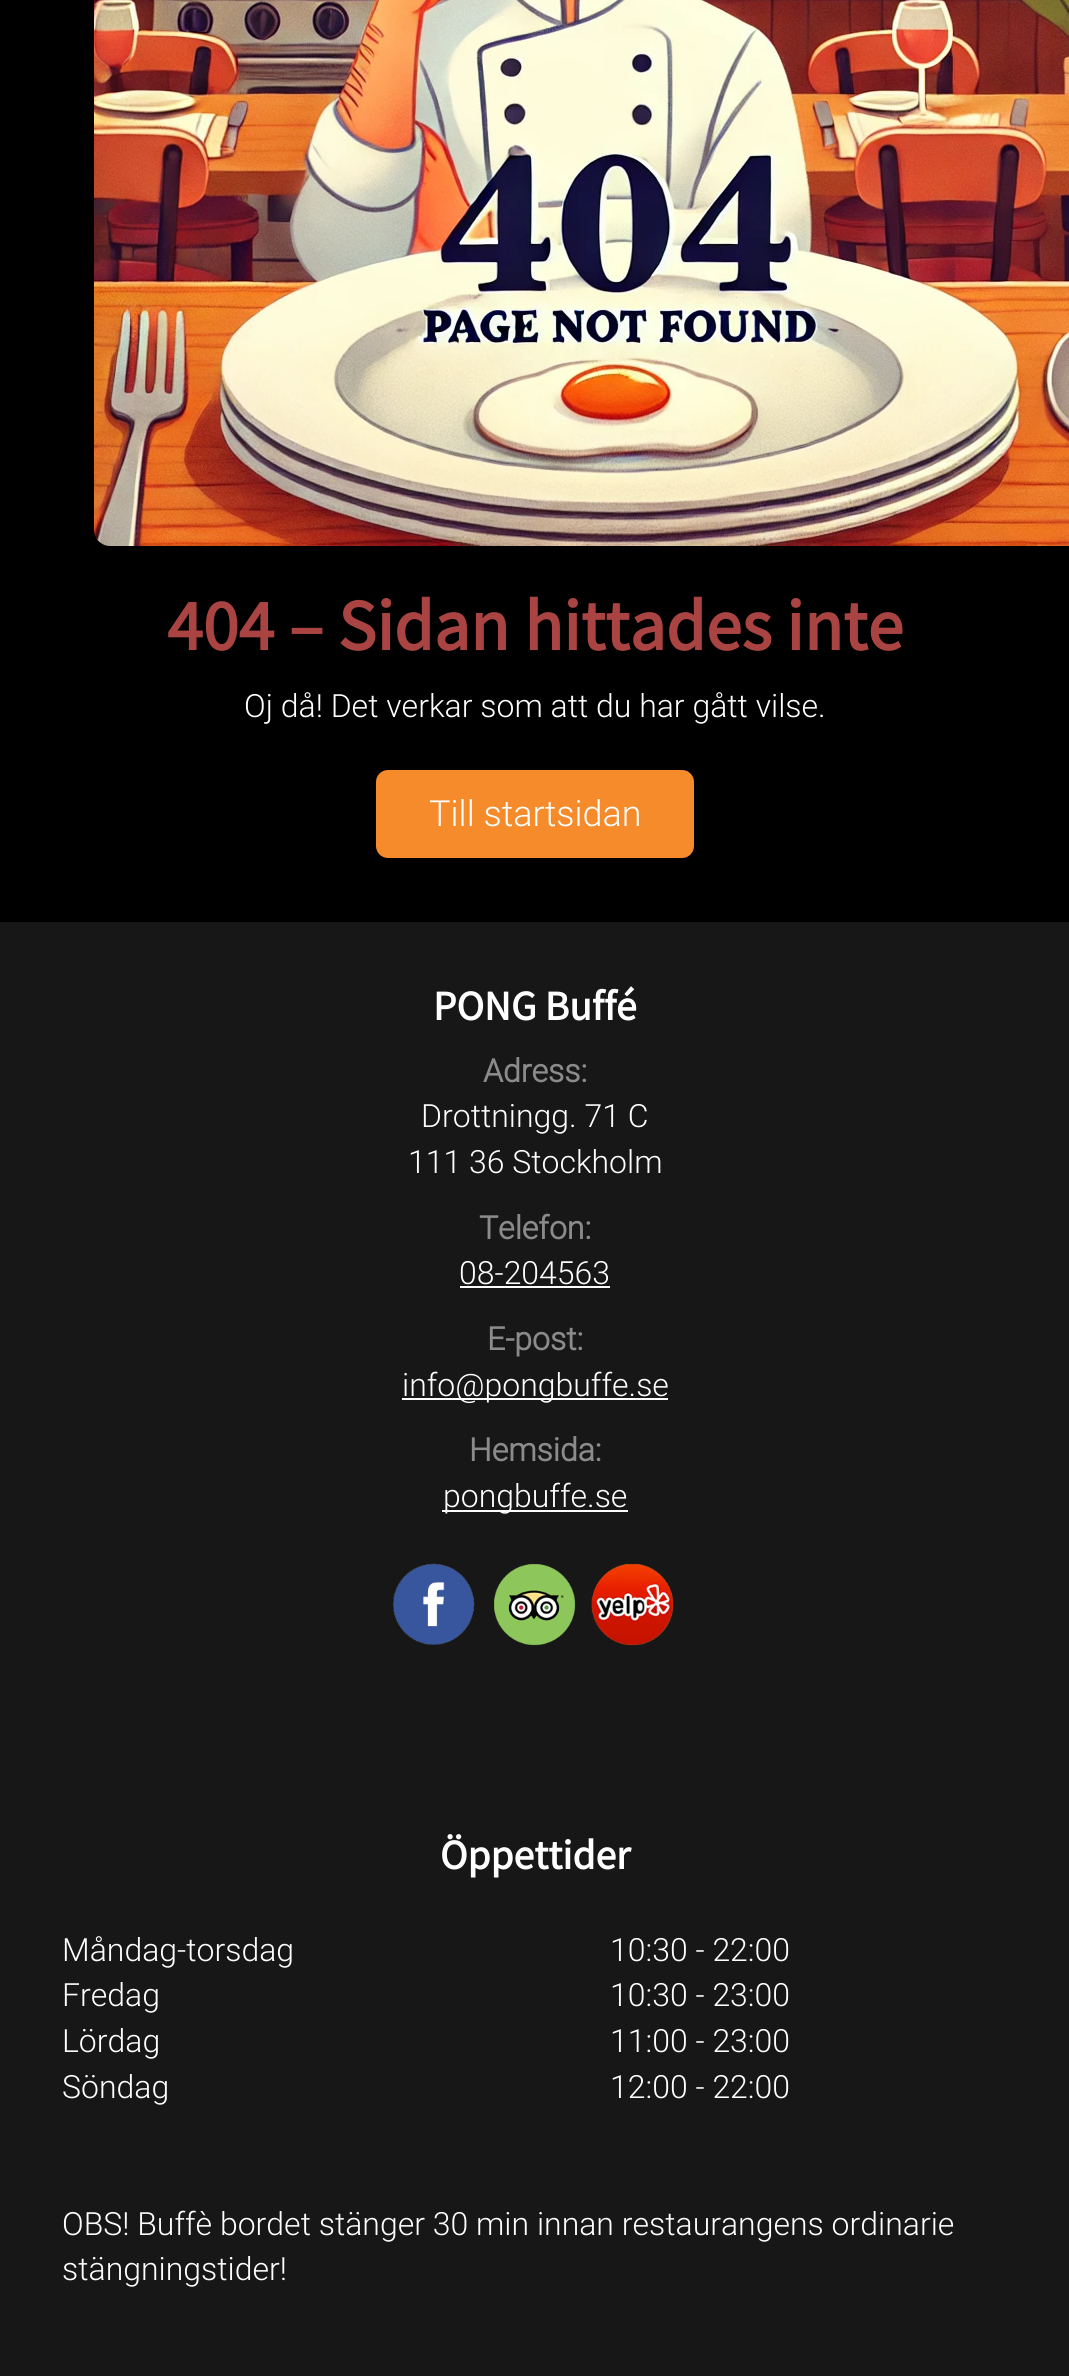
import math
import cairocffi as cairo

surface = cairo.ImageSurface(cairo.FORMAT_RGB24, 1069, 2376)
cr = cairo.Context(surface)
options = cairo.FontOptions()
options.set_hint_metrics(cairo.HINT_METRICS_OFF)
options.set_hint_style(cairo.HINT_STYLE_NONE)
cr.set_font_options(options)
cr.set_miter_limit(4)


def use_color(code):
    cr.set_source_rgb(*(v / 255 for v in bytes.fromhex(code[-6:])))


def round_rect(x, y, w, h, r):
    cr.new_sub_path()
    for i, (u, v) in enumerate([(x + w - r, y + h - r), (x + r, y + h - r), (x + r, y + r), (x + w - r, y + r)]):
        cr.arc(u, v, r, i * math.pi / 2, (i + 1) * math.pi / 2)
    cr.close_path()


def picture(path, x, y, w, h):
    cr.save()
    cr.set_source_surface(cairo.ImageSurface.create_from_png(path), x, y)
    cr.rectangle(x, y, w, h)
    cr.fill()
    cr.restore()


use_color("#000000")
cr.paint()
picture("img1.png", 94, 0, 975, 546)
cr.select_font_face("Source Sans Pro", cairo.FONT_SLANT_NORMAL, cairo.FONT_WEIGHT_BOLD)
cr.set_font_size(72)
use_color("#a94442")
cr.move_to(167, 650)
cr.show_text("404 – Sidan hittades inte")
cr.select_font_face("Roboto Light")
cr.set_font_size(32)
use_color("#ffffff")
cr.move_to(244, 717)
cr.show_text("Oj då! Det verkar som att du har gått vilse.")
use_color("#f58b2b")
round_rect(376, 770, 318, 88, 12)
cr.fill()
cr.set_font_size(36)
use_color("#ffffff")
cr.move_to(429, 826)
cr.show_text("Till startsidan")
use_color("#171717")
cr.rectangle(0, 922, 1069, 1454)
cr.fill()
cr.select_font_face("Source Sans Pro", cairo.FONT_SLANT_NORMAL, cairo.FONT_WEIGHT_BOLD)
cr.set_font_size(41.5)
use_color("#ffffff")
cr.move_to(433, 1020)
cr.show_text("PONG Buffé")
cr.select_font_face("Roboto", cairo.FONT_SLANT_NORMAL, cairo.FONT_WEIGHT_BOLD)
cr.set_font_size(32)
use_color("#8b8b8b")
cr.move_to(483, 1082)
cr.show_text("Adress:")
cr.select_font_face("Roboto Light")
use_color("#ffffff")
cr.move_to(421, 1127)
cr.show_text("Drottningg. 71 C")
cr.move_to(408, 1173)
cr.show_text("111 36 Stockholm")
cr.select_font_face("Roboto", cairo.FONT_SLANT_NORMAL, cairo.FONT_WEIGHT_BOLD)
use_color("#8b8b8b")
cr.move_to(479, 1239)
cr.show_text("Telefon:")
cr.select_font_face("Roboto Light")
use_color("#ffffff")
cr.move_to(459, 1284)
cr.show_text("08-204563")
cr.rectangle(460, 1286, 150, 2)
cr.fill()
cr.select_font_face("Roboto", cairo.FONT_SLANT_NORMAL, cairo.FONT_WEIGHT_BOLD)
use_color("#8b8b8b")
cr.move_to(487, 1350)
cr.show_text("E-post:")
use_color("#ffffff")
cr.rectangle(402, 1398, 266, 2)
cr.fill()
cr.select_font_face("Roboto Light")
cr.move_to(402, 1396)
cr.show_text("info@pongbuffe.se")
cr.select_font_face("Roboto", cairo.FONT_SLANT_NORMAL, cairo.FONT_WEIGHT_BOLD)
use_color("#8b8b8b")
cr.move_to(469, 1461)
cr.show_text("Hemsida:")
use_color("#ffffff")
cr.rectangle(442, 1510, 186, 2)
cr.fill()
cr.select_font_face("Roboto Light")
cr.move_to(443, 1507)
cr.show_text("pongbuffe.se")
picture("img2.png", 393, 1563, 82, 82)
picture("img3.png", 494, 1564, 82, 82)
picture("img4.png", 591, 1564, 83, 82)
cr.select_font_face("Source Sans Pro", cairo.FONT_SLANT_NORMAL, cairo.FONT_WEIGHT_BOLD)
cr.set_font_size(41.5)
cr.move_to(440, 1869)
cr.show_text("Öppettider")
cr.select_font_face("Roboto Light")
cr.set_font_size(32)
cr.move_to(62, 1961)
cr.show_text("Måndag-torsdag")
cr.move_to(610, 1961)
cr.show_text("10:30 - 22:00")
cr.move_to(62, 2006)
cr.show_text("Fredag")
cr.move_to(610, 2006)
cr.show_text("10:30 - 23:00")
cr.move_to(62, 2052)
cr.show_text("Lördag")
cr.move_to(610, 2052)
cr.show_text("11:00 - 23:00")
cr.move_to(62, 2098)
cr.show_text("Söndag")
cr.move_to(610, 2098)
cr.show_text("12:00 - 22:00")
cr.move_to(62, 2235)
cr.show_text("OBS! Buffè bordet stänger 30 min innan restaurangens ordinarie")
cr.move_to(62, 2280)
cr.show_text("stängningstider!")
surface.write_to_png("result.png")
